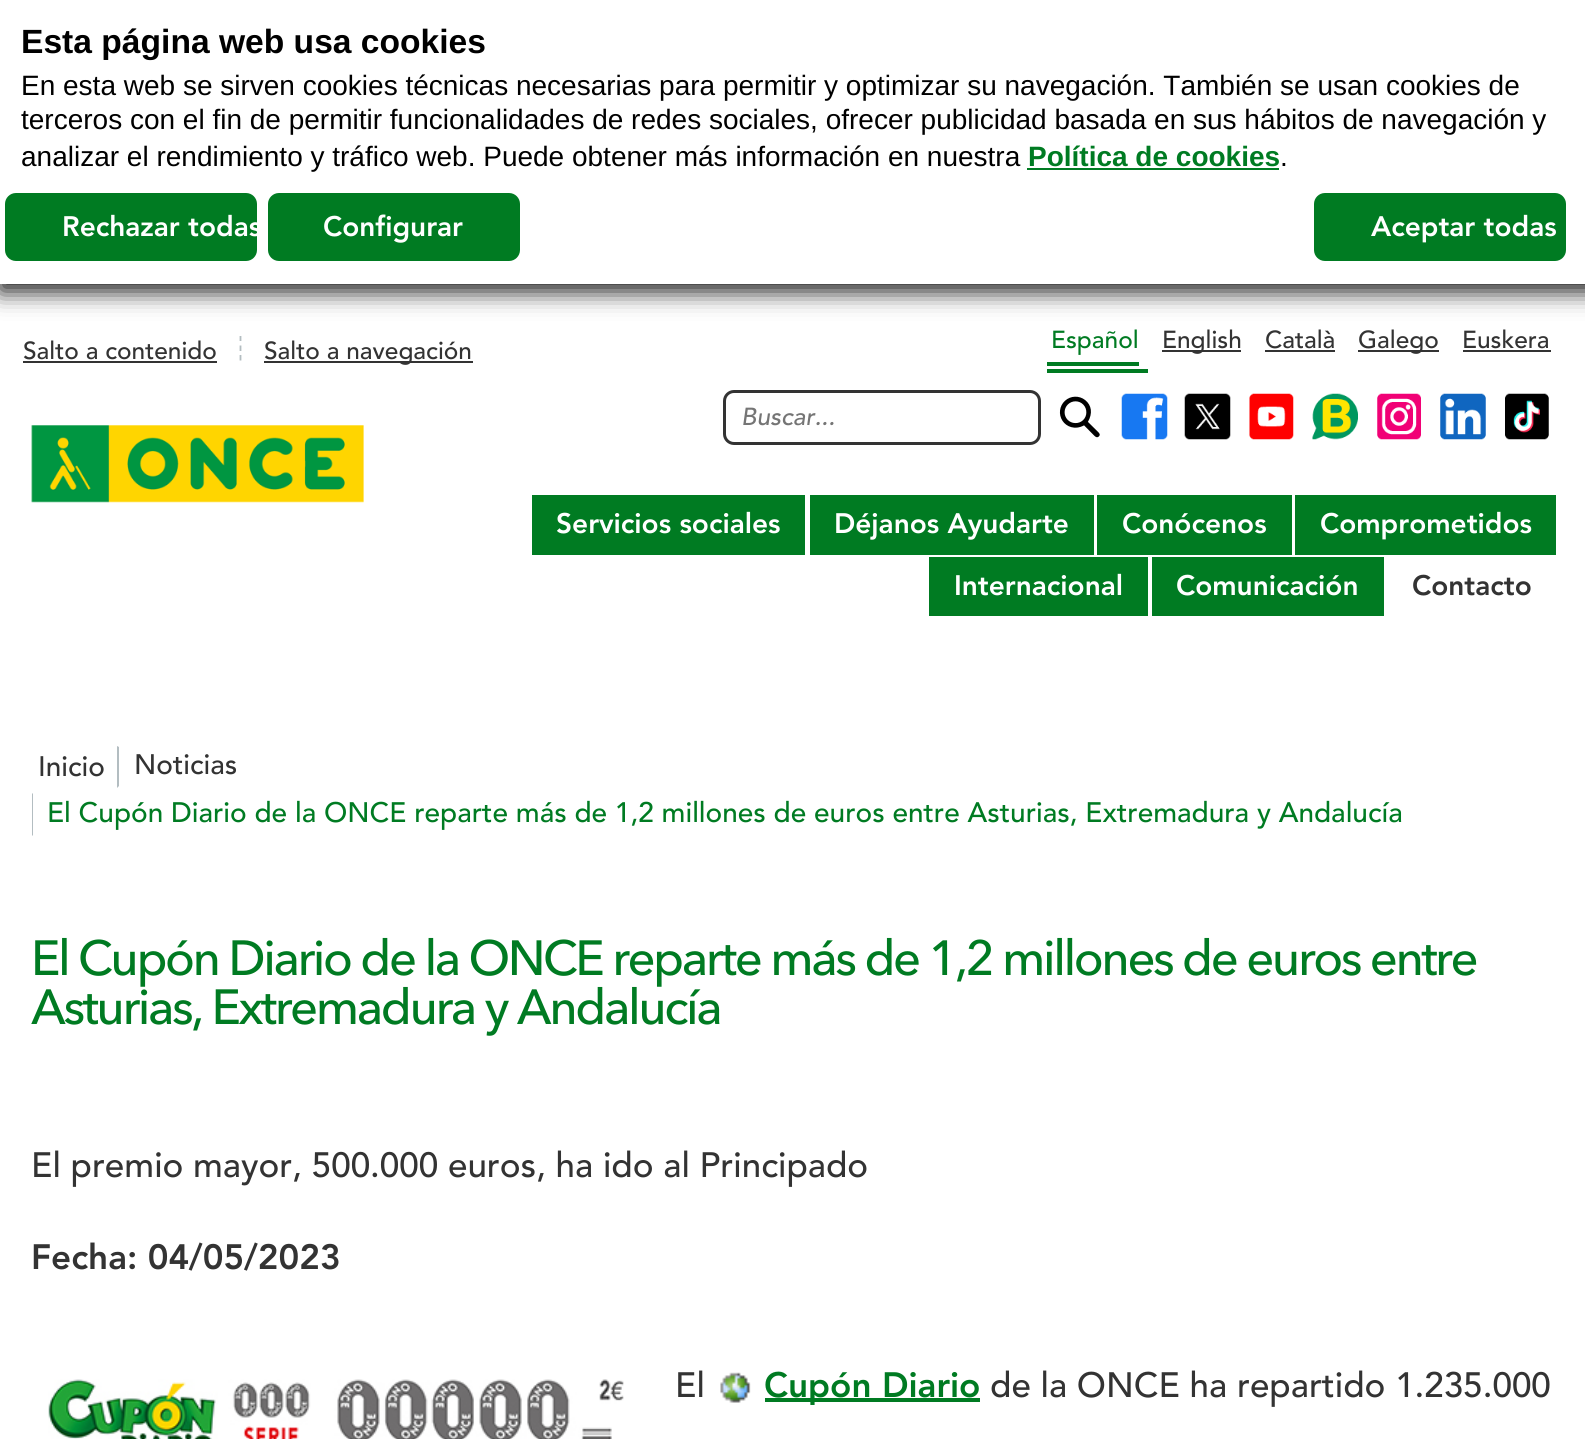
import math
import cairocffi as cairo

surface = cairo.ImageSurface(cairo.FORMAT_RGB24, 1585, 1439)
cr = cairo.Context(surface)
options = cairo.FontOptions()
options.set_hint_metrics(cairo.HINT_METRICS_OFF)
options.set_hint_style(cairo.HINT_STYLE_NONE)
cr.set_font_options(options)
cr.set_miter_limit(4)


def use_color(code):
    cr.set_source_rgb(*(v / 255 for v in bytes.fromhex(code[-6:])))


def spaced_text(x, y, s, letter, word):
    cr.move_to(x, y)
    for ch in s:
        cr.show_text(ch)
        cr.rel_move_to(letter + word * (ch == ' '), 0)


def round_rect(x, y, w, h, r):
    cr.new_sub_path()
    for i, (u, v) in enumerate([(x + w - r, y + h - r), (x + r, y + h - r), (x + r, y + r), (x + w - r, y + r)]):
        cr.arc(u, v, r, i * math.pi / 2, (i + 1) * math.pi / 2)
    cr.close_path()


def shadow(x, y, w, h, r, blur, alpha):
    cr.push_group_with_content(cairo.CONTENT_ALPHA)
    cr.set_operator(cairo.OPERATOR_SOURCE)
    for i in range(15, -16, -2):
        e = blur * i / 6
        if min(w, h) + 2 * e > 0:
            cr.set_source_rgba(0, 0, 0, alpha * math.erfc((i - 1) / 8.5) / 2)
            round_rect(x - e, y - e, w + 2 * e, h + 2 * e, max(0, min(r + e + blur * .6, min(w, h) / 2 + e)))
            cr.fill()
    cr.mask(cr.pop_group())


def picture(path, x, y, w, h):
    cr.save()
    cr.set_source_surface(cairo.ImageSurface.create_from_png(path), x, y)
    cr.rectangle(x, y, w, h)
    cr.fill()
    cr.restore()


use_color("#ffffff")
cr.paint()
use_color("#121212")
shadow(0, 0, 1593, 291, 0, 12, 1)
use_color("#ffffff")
cr.rectangle(0, 0, 1585, 284)
cr.fill()
cr.select_font_face("Liberation Sans", cairo.FONT_SLANT_NORMAL, cairo.FONT_WEIGHT_BOLD)
cr.set_font_size(33.6)
use_color("#000000")
cr.move_to(21, 53)
cr.show_text("Esta página web usa cookies")
cr.select_font_face("Liberation Sans")
cr.set_font_size(28)
cr.move_to(21, 95)
cr.show_text("En esta web se sirven cookies técnicas necesarias para permitir y optimizar su navegación. También se usan cookies de")
cr.move_to(21, 129)
cr.show_text("terceros con el fin de permitir funcionalidades de redes sociales, ofrecer publicidad basada en sus hábitos de navegación y")
cr.move_to(21, 166)
cr.show_text("analizar el rendimiento y tráfico web. Puede obtener más información en nuestra")
cr.select_font_face("Liberation Sans", cairo.FONT_SLANT_NORMAL, cairo.FONT_WEIGHT_BOLD)
use_color("#007b22")
cr.move_to(1028, 166)
cr.show_text("Política de cookies")
cr.rectangle(1027, 168, 252, 2)
cr.fill()
cr.select_font_face("Liberation Sans")
use_color("#000000")
cr.move_to(1280, 166)
cr.show_text(".")
use_color("#007b22")
round_rect(5, 193, 252, 68, 11)
cr.fill()
cr.save()
round_rect(5, 193, 252, 68, 11)
cr.clip()
cr.select_font_face("Avenir Black")
use_color("#ffffff")
cr.move_to(62, 236)
cr.show_text("Rechazar todas")
cr.restore()
round_rect(268, 193, 252, 68, 11)
cr.fill()
cr.select_font_face("Avenir Black")
use_color("#ffffff")
cr.move_to(323, 236)
cr.show_text("Configurar")
use_color("#007b22")
round_rect(1314, 193, 252, 68, 11)
cr.fill()
use_color("#ffffff")
cr.move_to(1371, 236)
cr.show_text("Aceptar todas")
cr.select_font_face("Avenir Medium")
cr.set_font_size(24.5)
use_color("#333333")
cr.move_to(23, 359)
cr.show_text("Salto a contenido")
cr.rectangle(23, 361, 194, 2)
cr.fill()
cr.new_path()
cr.move_to(240.5, 336)
cr.line_to(240.5, 341)
cr.move_to(240.5, 345.5)
cr.line_to(240.5, 351)
cr.move_to(240.5, 355)
cr.line_to(240.5, 360.5)
use_color("#b3bdc1")
cr.set_line_width(1.8)
cr.stroke()
use_color("#333333")
cr.rectangle(264, 361, 209, 2)
cr.fill()
cr.move_to(264, 359)
cr.show_text("Salto a navegación")
use_color("#007b22")
cr.move_to(1051, 348)
cr.show_text("Español")
cr.rectangle(1047, 362, 92, 4)
cr.fill()
cr.rectangle(1047, 369, 101, 4)
cr.fill()
use_color("#333333")
cr.rectangle(1162, 350, 79, 2)
cr.fill()
cr.move_to(1162, 348)
cr.show_text("English")
cr.move_to(1265, 348)
cr.show_text("Català")
cr.rectangle(1265, 350, 70, 2)
cr.fill()
cr.rectangle(1358, 350, 81, 2)
cr.fill()
cr.move_to(1358, 348)
cr.show_text("Galego")
cr.move_to(1462, 348)
cr.show_text("Euskera")
cr.rectangle(1463, 350, 88, 2)
cr.fill()
round_rect(724.5, 391.5, 315, 52, 9.5)
cr.set_line_width(3)
cr.stroke()
cr.select_font_face("Avenir Medium", cairo.FONT_SLANT_ITALIC)
use_color("#757575")
cr.move_to(741, 425)
cr.show_text("Buscar...")
picture("img1.png", 1059, 396, 41, 42)
picture("img2.png", 1121, 393, 47, 47)
picture("img3.png", 1184, 393, 47, 47)
picture("img4.png", 1249, 393, 45, 47)
picture("img5.png", 1312, 393, 46, 47)
picture("img6.png", 1377, 393, 44, 47)
picture("img7.png", 1440, 393, 46, 47)
picture("img8.png", 1505, 393, 44, 47)
picture("img9.png", 31, 425, 333, 78)
use_color("#007b22")
cr.rectangle(532, 495, 273, 60)
cr.fill()
cr.select_font_face("Avenir Black")
cr.set_font_size(28)
use_color("#ffffff")
cr.move_to(556, 533)
cr.show_text("Servicios sociales")
use_color("#007b22")
cr.rectangle(810, 495, 284, 60)
cr.fill()
use_color("#ffffff")
cr.move_to(834, 533)
cr.show_text("Déjanos Ayudarte")
use_color("#007b22")
cr.rectangle(1097, 495, 195, 60)
cr.fill()
use_color("#ffffff")
cr.move_to(1122, 533)
cr.show_text("Conócenos")
use_color("#007b22")
cr.rectangle(1295, 495, 261, 60)
cr.fill()
use_color("#ffffff")
cr.move_to(1320, 533)
cr.show_text("Comprometidos")
use_color("#007b22")
cr.rectangle(929, 557, 219, 59)
cr.fill()
use_color("#ffffff")
cr.move_to(954, 595)
cr.show_text("Internacional")
use_color("#007b22")
cr.rectangle(1152, 557, 232, 59)
cr.fill()
use_color("#ffffff")
cr.move_to(1176, 595)
cr.show_text("Comunicación")
use_color("#333333")
cr.move_to(1412, 595)
cr.show_text("Contacto")
cr.select_font_face("Avenir Medium")
cr.move_to(38, 776)
cr.show_text("Inicio")
use_color("#b3bdc1")
cr.new_path()
cr.move_to(117, 788)
cr.line_to(117, 746)
cr.line_to(119, 747)
cr.line_to(119, 786)
cr.close_path()
cr.fill()
use_color("#333333")
cr.move_to(134, 774)
cr.show_text("Noticias")
use_color("#b3bdc1")
cr.new_path()
cr.move_to(32, 836)
cr.line_to(32, 793)
cr.line_to(33, 794)
cr.line_to(33, 835)
cr.close_path()
cr.fill()
use_color("#007b22")
cr.move_to(47, 822)
cr.show_text("El Cupón Diario de la ONCE reparte más de 1,2 millones de euros entre Asturias, Extremadura y Andalucía")
cr.select_font_face("Avenir Next Medium")
cr.set_font_size(49)
spaced_text(31, 975, "El Cupón Diario de la ONCE reparte más de 1,2 millones de euros entre", -2.45, 0)
spaced_text(31, 1024, "Asturias, Extremadura y Andalucía", -2.45, 0)
cr.select_font_face("Avenir Medium")
cr.set_font_size(35)
use_color("#333333")
cr.move_to(31, 1177)
cr.show_text("El premio mayor, 500.000 euros, ha ido al Principado")
cr.select_font_face("Avenir Black")
cr.move_to(31, 1269)
cr.show_text("Fecha: 04/05/2023")
picture("img10.png", 48, 1379, 576, 60)
cr.select_font_face("Avenir Medium")
cr.move_to(675, 1397)
cr.show_text("El")
picture("img11.png", 720, 1372, 31, 31)
use_color("#007b22")
cr.rectangle(765, 1398, 215, 4)
cr.fill()
cr.select_font_face("Avenir Black")
cr.move_to(764, 1397)
cr.show_text("Cupón Diario")
cr.select_font_face("Avenir Medium")
use_color("#333333")
cr.move_to(990, 1397)
cr.show_text("de la ONCE ha repartido 1.235.000")
surface.write_to_png("result.png")
